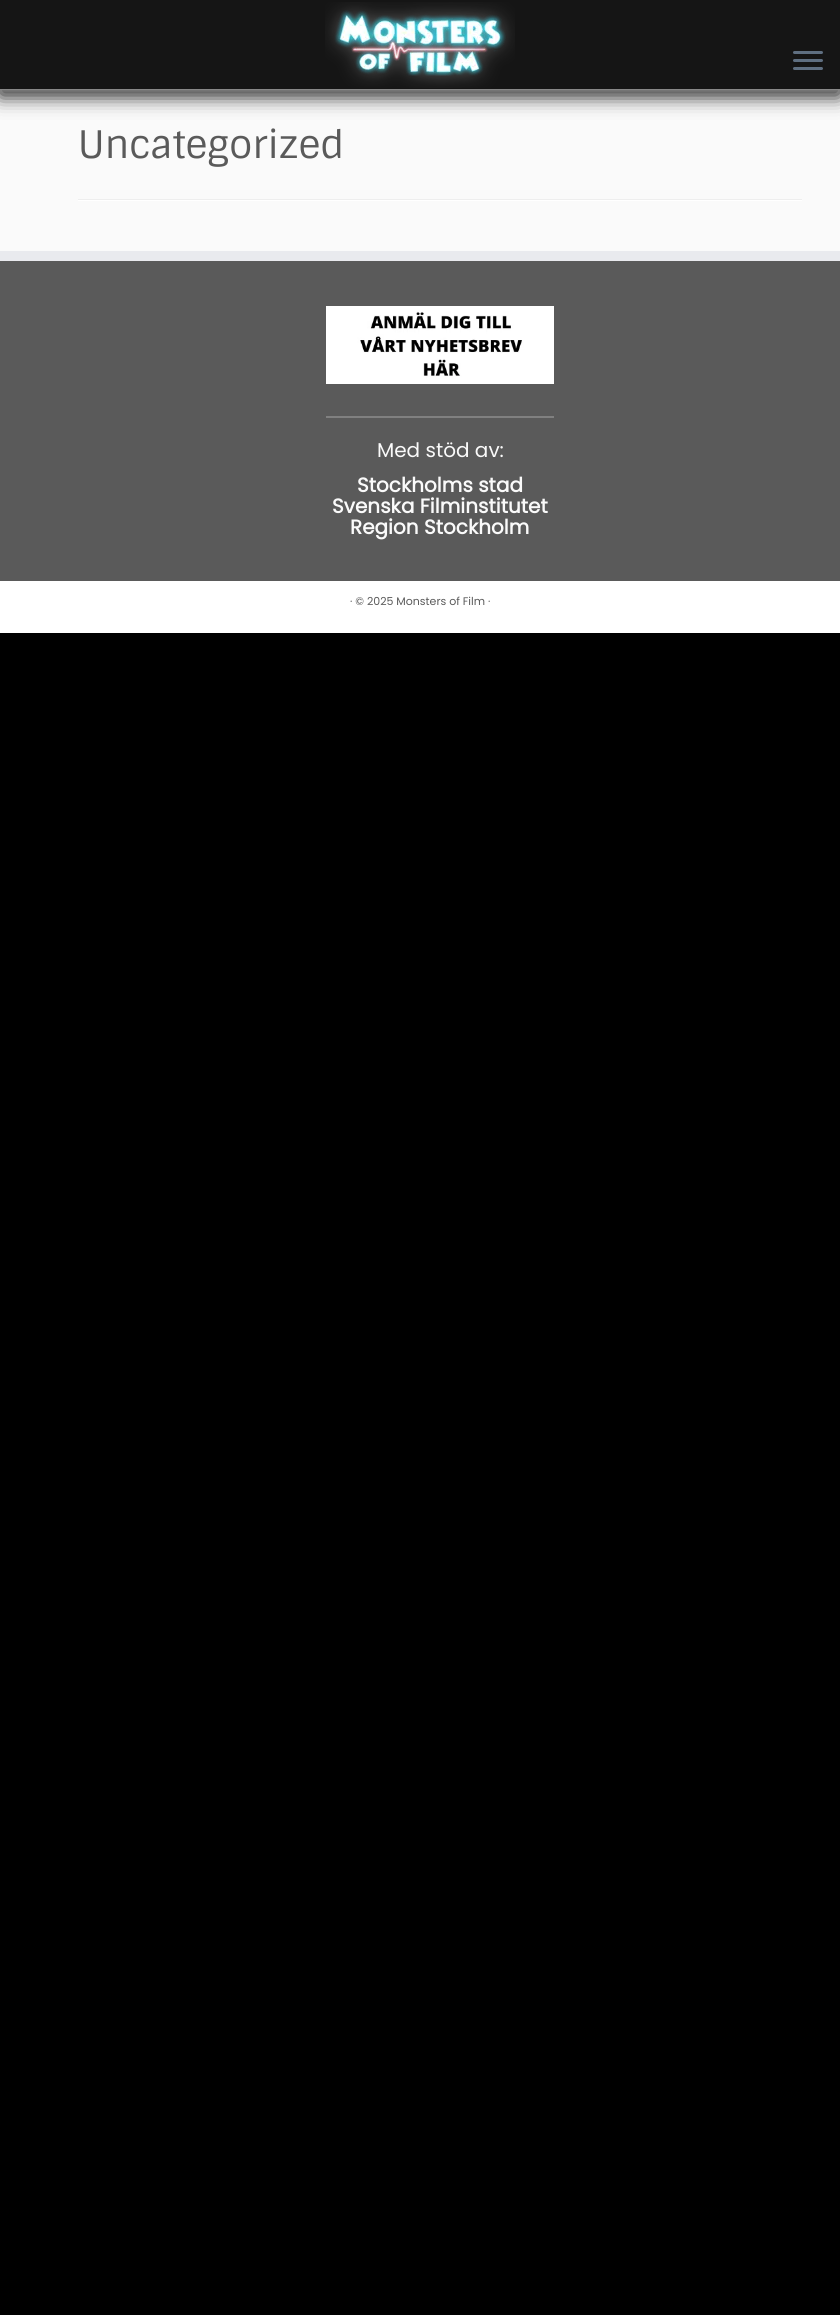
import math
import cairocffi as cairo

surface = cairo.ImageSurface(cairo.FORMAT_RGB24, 840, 2315)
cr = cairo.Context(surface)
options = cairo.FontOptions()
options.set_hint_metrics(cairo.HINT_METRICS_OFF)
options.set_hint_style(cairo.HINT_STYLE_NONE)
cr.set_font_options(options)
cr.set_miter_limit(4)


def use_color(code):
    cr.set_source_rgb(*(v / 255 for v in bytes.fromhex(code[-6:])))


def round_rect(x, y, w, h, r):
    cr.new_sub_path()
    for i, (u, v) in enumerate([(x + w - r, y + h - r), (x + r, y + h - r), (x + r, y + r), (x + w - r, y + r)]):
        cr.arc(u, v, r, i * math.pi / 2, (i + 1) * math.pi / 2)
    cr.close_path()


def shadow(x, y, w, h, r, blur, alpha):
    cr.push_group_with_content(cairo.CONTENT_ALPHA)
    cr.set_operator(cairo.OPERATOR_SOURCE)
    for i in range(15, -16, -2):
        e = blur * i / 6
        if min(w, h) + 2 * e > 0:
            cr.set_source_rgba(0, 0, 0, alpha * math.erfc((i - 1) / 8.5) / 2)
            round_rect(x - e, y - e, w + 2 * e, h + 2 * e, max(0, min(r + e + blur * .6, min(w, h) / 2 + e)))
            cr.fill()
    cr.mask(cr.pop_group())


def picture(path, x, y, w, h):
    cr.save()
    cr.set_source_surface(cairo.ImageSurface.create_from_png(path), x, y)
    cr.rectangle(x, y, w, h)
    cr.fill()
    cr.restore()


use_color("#000000")
cr.paint()
use_color("#fafafa")
cr.rectangle(0, 90, 840, 161)
cr.fill()
use_color("#000000")
shadow(0, 5, 840, 90, 0, 10, 1)
use_color("#888888")
shadow(0, 1, 840, 90, 0, 3, 1)
use_color("#151515")
cr.rectangle(0, 0, 840, 89)
cr.fill()
use_color("#888888")
cr.rectangle(0, 89, 840, 1)
cr.fill()
picture("img1.png", 325, 2, 190, 86)
use_color("#5f6f81")
round_rect(793, 51, 30, 3, 1.5)
cr.fill()
round_rect(793, 59, 30, 3, 1.5)
cr.fill()
round_rect(793, 67, 30, 3, 1.5)
cr.fill()
cr.select_font_face("Sintony")
cr.set_font_size(38)
use_color("#5a5a5a")
cr.move_to(78, 158)
cr.show_text("Uncategorized")
use_color("#eeeeee")
cr.rectangle(78, 199, 724, 1)
cr.fill()
use_color("#ffffff")
cr.rectangle(78, 200, 724, 1)
cr.fill()
use_color("#5a5a5a")
cr.rectangle(0, 261, 840, 320)
cr.fill()
use_color("#e9eaee")
cr.rectangle(0, 251, 840, 10)
cr.fill()
picture("img2.png", 326, 306, 228, 78)
use_color("#808080")
cr.rectangle(326, 416, 228, 2)
cr.fill()
cr.select_font_face("Poppins")
cr.set_font_size(20)
use_color("#fafafa")
cr.move_to(377, 457)
cr.show_text("Med stöd av:")
cr.select_font_face("Poppins", cairo.FONT_SLANT_NORMAL, cairo.FONT_WEIGHT_BOLD)
cr.move_to(357, 492)
cr.show_text("Stockholms stad")
cr.move_to(332, 513)
cr.show_text("Svenska Filminstitutet")
cr.move_to(350, 534)
cr.show_text("Region Stockholm")
use_color("#ffffff")
cr.rectangle(0, 581, 840, 52)
cr.fill()
cr.select_font_face("Poppins")
cr.set_font_size(11)
use_color("#5a5a5a")
cr.move_to(350, 605)
cr.show_text("· © 2025 Monsters of Film ·")
surface.write_to_png("result.png")
